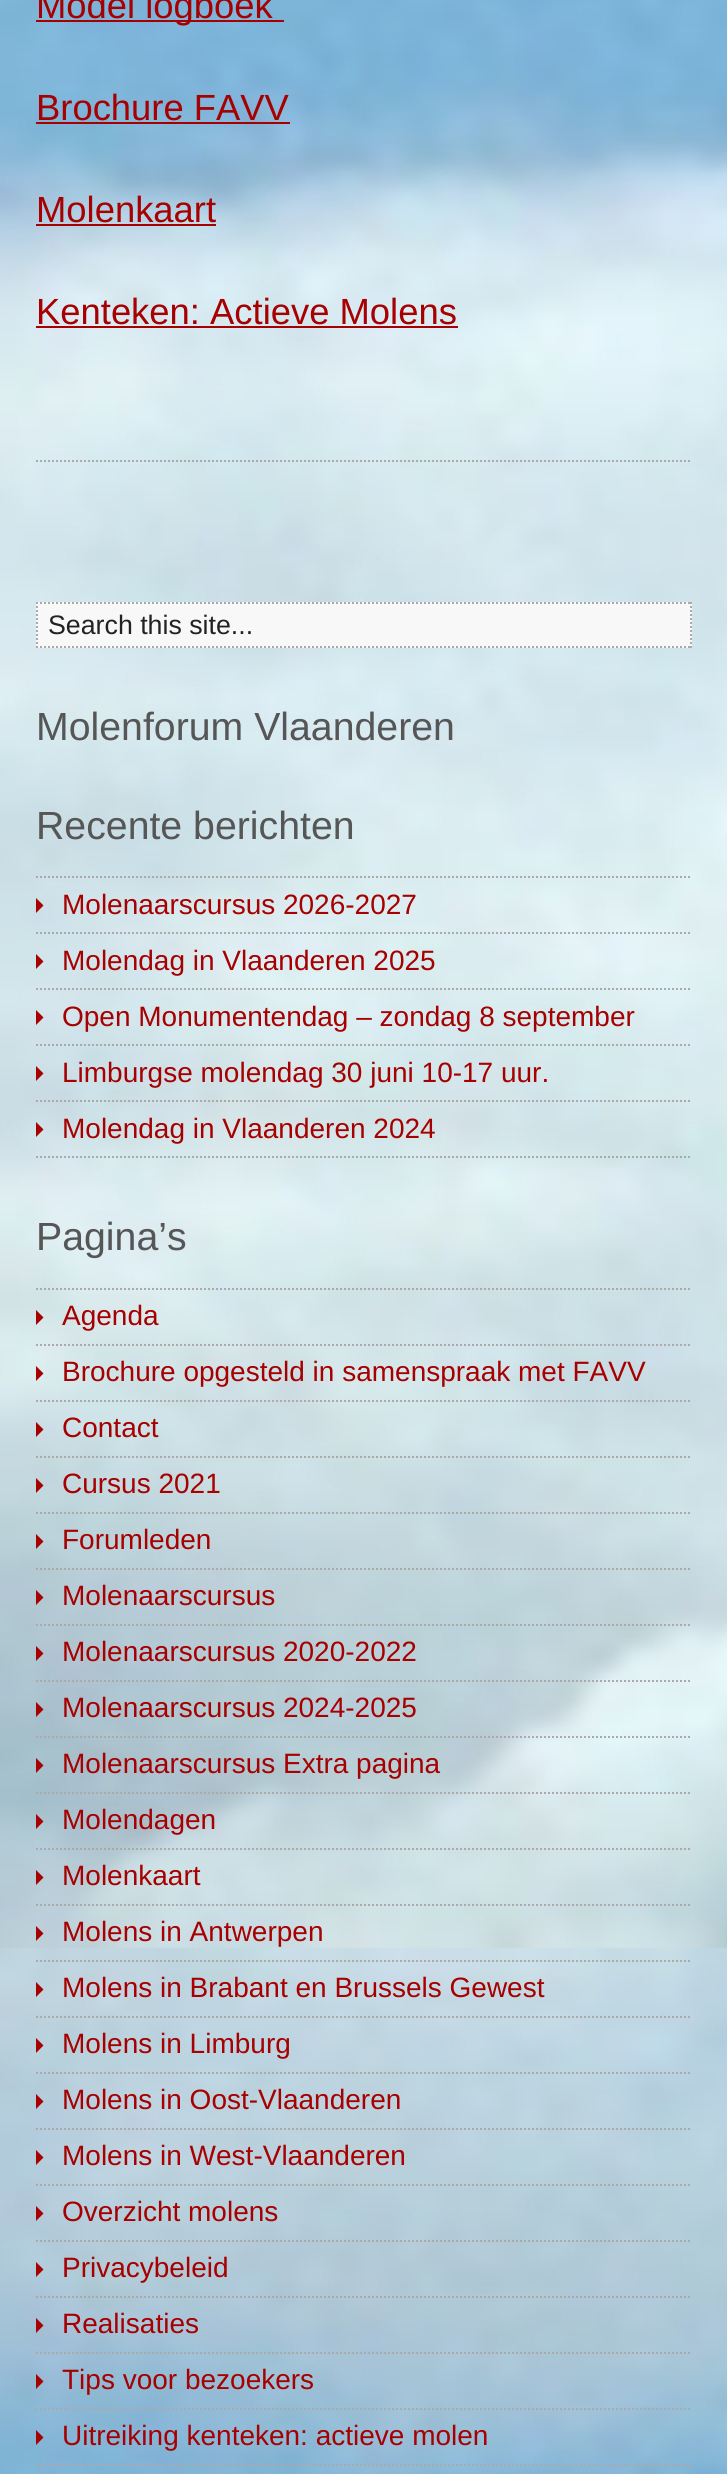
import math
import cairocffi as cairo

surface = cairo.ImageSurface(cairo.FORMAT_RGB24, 727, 2474)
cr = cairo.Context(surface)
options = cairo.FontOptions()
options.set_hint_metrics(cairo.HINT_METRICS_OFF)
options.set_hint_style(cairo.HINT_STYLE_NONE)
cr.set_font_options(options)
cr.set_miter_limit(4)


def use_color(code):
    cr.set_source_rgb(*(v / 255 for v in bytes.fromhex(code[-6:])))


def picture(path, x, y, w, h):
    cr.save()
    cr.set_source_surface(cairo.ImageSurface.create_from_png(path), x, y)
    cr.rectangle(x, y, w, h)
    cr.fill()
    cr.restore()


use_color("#ffffff")
cr.paint()
picture("img1.png", 0, 0, 727, 2474)
cr.new_path()
cr.move_to(36, 461)
cr.line_to(692, 461)
use_color("#aaaaaa")
cr.set_dash([2, 2])
cr.stroke()
use_color("#a60000")
cr.rectangle(36, 20, 248, 2)
cr.fill()
cr.select_font_face("Liberation Sans")
cr.set_font_size(36.4)
cr.move_to(36, 18)
cr.show_text("Model logboek")
cr.move_to(36, 120)
cr.show_text("Brochure FAVV")
cr.rectangle(36, 122, 254, 2)
cr.fill()
cr.move_to(36, 222)
cr.show_text("Molenkaart")
cr.rectangle(36, 224, 180, 2)
cr.fill()
cr.move_to(36, 324)
cr.show_text("Kenteken: Actieve Molens")
cr.rectangle(36, 326, 422, 2)
cr.fill()
use_color("#f8f8f8")
cr.rectangle(36, 602, 656, 46)
cr.fill()
cr.new_path()
cr.move_to(36, 603)
cr.line_to(692, 603)
use_color("#aaaaaa")
cr.stroke()
cr.new_path()
cr.move_to(691, 602)
cr.line_to(691, 648)
cr.stroke()
cr.new_path()
cr.move_to(36, 647)
cr.line_to(692, 647)
cr.stroke()
cr.new_path()
cr.move_to(37, 602)
cr.line_to(37, 648)
cr.stroke()
cr.set_font_size(26.75)
use_color("#222222")
cr.move_to(48, 634)
cr.show_text("Search this site...")
cr.set_font_size(39.25)
use_color("#565656")
cr.move_to(36, 740)
cr.show_text("Molenforum Vlaanderen")
cr.move_to(36, 839)
cr.show_text("Recente berichten")
cr.new_path()
cr.move_to(36, 877)
cr.line_to(692, 877)
use_color("#aaaaaa")
cr.stroke()
cr.new_path()
cr.move_to(36, 933)
cr.line_to(692, 933)
cr.stroke()
use_color("#a60000")
cr.new_path()
cr.move_to(36, 913)
cr.line_to(43.5, 905.5)
cr.line_to(36, 898)
cr.close_path()
cr.fill()
cr.set_font_size(28)
cr.move_to(62, 914)
cr.show_text("Molenaarscursus 2026-2027")
cr.new_path()
cr.move_to(36, 989)
cr.line_to(692, 989)
use_color("#aaaaaa")
cr.stroke()
use_color("#a60000")
cr.new_path()
cr.move_to(36, 969)
cr.line_to(43.5, 961.5)
cr.line_to(36, 954)
cr.close_path()
cr.fill()
cr.move_to(62, 970)
cr.show_text("Molendag in Vlaanderen 2025")
cr.new_path()
cr.move_to(36, 1045)
cr.line_to(692, 1045)
use_color("#aaaaaa")
cr.stroke()
use_color("#a60000")
cr.new_path()
cr.move_to(36, 1025)
cr.line_to(43.5, 1017.5)
cr.line_to(36, 1010)
cr.close_path()
cr.fill()
cr.move_to(62, 1026)
cr.show_text("Open Monumentendag – zondag 8 september")
cr.new_path()
cr.move_to(36, 1101)
cr.line_to(692, 1101)
use_color("#aaaaaa")
cr.stroke()
use_color("#a60000")
cr.new_path()
cr.move_to(36, 1081)
cr.line_to(43.5, 1073.5)
cr.line_to(36, 1066)
cr.close_path()
cr.fill()
cr.move_to(62, 1082)
cr.show_text("Limburgse molendag 30 juni 10-17 uur.")
cr.new_path()
cr.move_to(36, 1157)
cr.line_to(692, 1157)
use_color("#aaaaaa")
cr.stroke()
use_color("#a60000")
cr.new_path()
cr.move_to(36, 1137)
cr.line_to(43.5, 1129.5)
cr.line_to(36, 1122)
cr.close_path()
cr.fill()
cr.move_to(62, 1138)
cr.show_text("Molendag in Vlaanderen 2024")
cr.set_font_size(39.25)
use_color("#565656")
cr.move_to(36, 1250)
cr.show_text("Pagina’s")
cr.new_path()
cr.move_to(36, 1289)
cr.line_to(692, 1289)
use_color("#aaaaaa")
cr.stroke()
cr.new_path()
cr.move_to(36, 1345)
cr.line_to(692, 1345)
cr.stroke()
use_color("#a60000")
cr.new_path()
cr.move_to(36, 1325)
cr.line_to(43.5, 1317.5)
cr.line_to(36, 1310)
cr.close_path()
cr.fill()
cr.set_font_size(28)
cr.move_to(62, 1325)
cr.show_text("Agenda")
cr.new_path()
cr.move_to(36, 1401)
cr.line_to(692, 1401)
use_color("#aaaaaa")
cr.stroke()
use_color("#a60000")
cr.new_path()
cr.move_to(36, 1381)
cr.line_to(43.5, 1373.5)
cr.line_to(36, 1366)
cr.close_path()
cr.fill()
cr.move_to(62, 1381)
cr.show_text("Brochure opgesteld in samenspraak met FAVV")
cr.new_path()
cr.move_to(36, 1457)
cr.line_to(692, 1457)
use_color("#aaaaaa")
cr.stroke()
use_color("#a60000")
cr.new_path()
cr.move_to(36, 1437)
cr.line_to(43.5, 1429.5)
cr.line_to(36, 1422)
cr.close_path()
cr.fill()
cr.move_to(62, 1437)
cr.show_text("Contact")
cr.new_path()
cr.move_to(36, 1513)
cr.line_to(692, 1513)
use_color("#aaaaaa")
cr.stroke()
use_color("#a60000")
cr.new_path()
cr.move_to(36, 1493)
cr.line_to(43.5, 1485.5)
cr.line_to(36, 1478)
cr.close_path()
cr.fill()
cr.move_to(62, 1493)
cr.show_text("Cursus 2021")
cr.new_path()
cr.move_to(36, 1569)
cr.line_to(692, 1569)
use_color("#aaaaaa")
cr.stroke()
use_color("#a60000")
cr.new_path()
cr.move_to(36, 1549)
cr.line_to(43.5, 1541.5)
cr.line_to(36, 1534)
cr.close_path()
cr.fill()
cr.move_to(62, 1549)
cr.show_text("Forumleden")
cr.new_path()
cr.move_to(36, 1625)
cr.line_to(692, 1625)
use_color("#aaaaaa")
cr.stroke()
use_color("#a60000")
cr.new_path()
cr.move_to(36, 1605)
cr.line_to(43.5, 1597.5)
cr.line_to(36, 1590)
cr.close_path()
cr.fill()
cr.move_to(62, 1605)
cr.show_text("Molenaarscursus")
cr.new_path()
cr.move_to(36, 1681)
cr.line_to(692, 1681)
use_color("#aaaaaa")
cr.stroke()
use_color("#a60000")
cr.new_path()
cr.move_to(36, 1661)
cr.line_to(43.5, 1653.5)
cr.line_to(36, 1646)
cr.close_path()
cr.fill()
cr.move_to(62, 1661)
cr.show_text("Molenaarscursus 2020-2022")
cr.new_path()
cr.move_to(36, 1737)
cr.line_to(692, 1737)
use_color("#aaaaaa")
cr.stroke()
use_color("#a60000")
cr.new_path()
cr.move_to(36, 1717)
cr.line_to(43.5, 1709.5)
cr.line_to(36, 1702)
cr.close_path()
cr.fill()
cr.move_to(62, 1717)
cr.show_text("Molenaarscursus 2024-2025")
cr.new_path()
cr.move_to(36, 1793)
cr.line_to(692, 1793)
use_color("#aaaaaa")
cr.stroke()
use_color("#a60000")
cr.new_path()
cr.move_to(36, 1773)
cr.line_to(43.5, 1765.5)
cr.line_to(36, 1758)
cr.close_path()
cr.fill()
cr.move_to(62, 1773)
cr.show_text("Molenaarscursus Extra pagina")
cr.new_path()
cr.move_to(36, 1849)
cr.line_to(692, 1849)
use_color("#aaaaaa")
cr.stroke()
use_color("#a60000")
cr.new_path()
cr.move_to(36, 1829)
cr.line_to(43.5, 1821.5)
cr.line_to(36, 1814)
cr.close_path()
cr.fill()
cr.move_to(62, 1829)
cr.show_text("Molendagen")
cr.new_path()
cr.move_to(36, 1905)
cr.line_to(692, 1905)
use_color("#aaaaaa")
cr.stroke()
use_color("#a60000")
cr.new_path()
cr.move_to(36, 1885)
cr.line_to(43.5, 1877.5)
cr.line_to(36, 1870)
cr.close_path()
cr.fill()
cr.move_to(62, 1885)
cr.show_text("Molenkaart")
cr.new_path()
cr.move_to(36, 1961)
cr.line_to(692, 1961)
use_color("#aaaaaa")
cr.stroke()
use_color("#a60000")
cr.new_path()
cr.move_to(36, 1941)
cr.line_to(43.5, 1933.5)
cr.line_to(36, 1926)
cr.close_path()
cr.fill()
cr.move_to(62, 1941)
cr.show_text("Molens in Antwerpen")
cr.new_path()
cr.move_to(36, 2017)
cr.line_to(692, 2017)
use_color("#aaaaaa")
cr.stroke()
use_color("#a60000")
cr.new_path()
cr.move_to(36, 1997)
cr.line_to(43.5, 1989.5)
cr.line_to(36, 1982)
cr.close_path()
cr.fill()
cr.move_to(62, 1997)
cr.show_text("Molens in Brabant en Brussels Gewest")
cr.new_path()
cr.move_to(36, 2073)
cr.line_to(692, 2073)
use_color("#aaaaaa")
cr.stroke()
use_color("#a60000")
cr.new_path()
cr.move_to(36, 2053)
cr.line_to(43.5, 2045.5)
cr.line_to(36, 2038)
cr.close_path()
cr.fill()
cr.move_to(62, 2053)
cr.show_text("Molens in Limburg")
cr.new_path()
cr.move_to(36, 2129)
cr.line_to(692, 2129)
use_color("#aaaaaa")
cr.stroke()
use_color("#a60000")
cr.new_path()
cr.move_to(36, 2109)
cr.line_to(43.5, 2101.5)
cr.line_to(36, 2094)
cr.close_path()
cr.fill()
cr.move_to(62, 2109)
cr.show_text("Molens in Oost-Vlaanderen")
cr.new_path()
cr.move_to(36, 2185)
cr.line_to(692, 2185)
use_color("#aaaaaa")
cr.stroke()
use_color("#a60000")
cr.new_path()
cr.move_to(36, 2165)
cr.line_to(43.5, 2157.5)
cr.line_to(36, 2150)
cr.close_path()
cr.fill()
cr.move_to(62, 2165)
cr.show_text("Molens in West-Vlaanderen")
cr.new_path()
cr.move_to(36, 2241)
cr.line_to(692, 2241)
use_color("#aaaaaa")
cr.stroke()
use_color("#a60000")
cr.new_path()
cr.move_to(36, 2221)
cr.line_to(43.5, 2213.5)
cr.line_to(36, 2206)
cr.close_path()
cr.fill()
cr.move_to(62, 2221)
cr.show_text("Overzicht molens")
cr.new_path()
cr.move_to(36, 2297)
cr.line_to(692, 2297)
use_color("#aaaaaa")
cr.stroke()
use_color("#a60000")
cr.new_path()
cr.move_to(36, 2277)
cr.line_to(43.5, 2269.5)
cr.line_to(36, 2262)
cr.close_path()
cr.fill()
cr.move_to(62, 2277)
cr.show_text("Privacybeleid")
cr.new_path()
cr.move_to(36, 2353)
cr.line_to(692, 2353)
use_color("#aaaaaa")
cr.stroke()
use_color("#a60000")
cr.new_path()
cr.move_to(36, 2333)
cr.line_to(43.5, 2325.5)
cr.line_to(36, 2318)
cr.close_path()
cr.fill()
cr.move_to(62, 2333)
cr.show_text("Realisaties")
cr.new_path()
cr.move_to(36, 2409)
cr.line_to(692, 2409)
use_color("#aaaaaa")
cr.stroke()
use_color("#a60000")
cr.new_path()
cr.move_to(36, 2389)
cr.line_to(43.5, 2381.5)
cr.line_to(36, 2374)
cr.close_path()
cr.fill()
cr.move_to(62, 2389)
cr.show_text("Tips voor bezoekers")
cr.new_path()
cr.move_to(36, 2465)
cr.line_to(692, 2465)
use_color("#aaaaaa")
cr.stroke()
use_color("#a60000")
cr.new_path()
cr.move_to(36, 2445)
cr.line_to(43.5, 2437.5)
cr.line_to(36, 2430)
cr.close_path()
cr.fill()
cr.move_to(62, 2445)
cr.show_text("Uitreiking kenteken: actieve molen")
surface.write_to_png("result.png")
